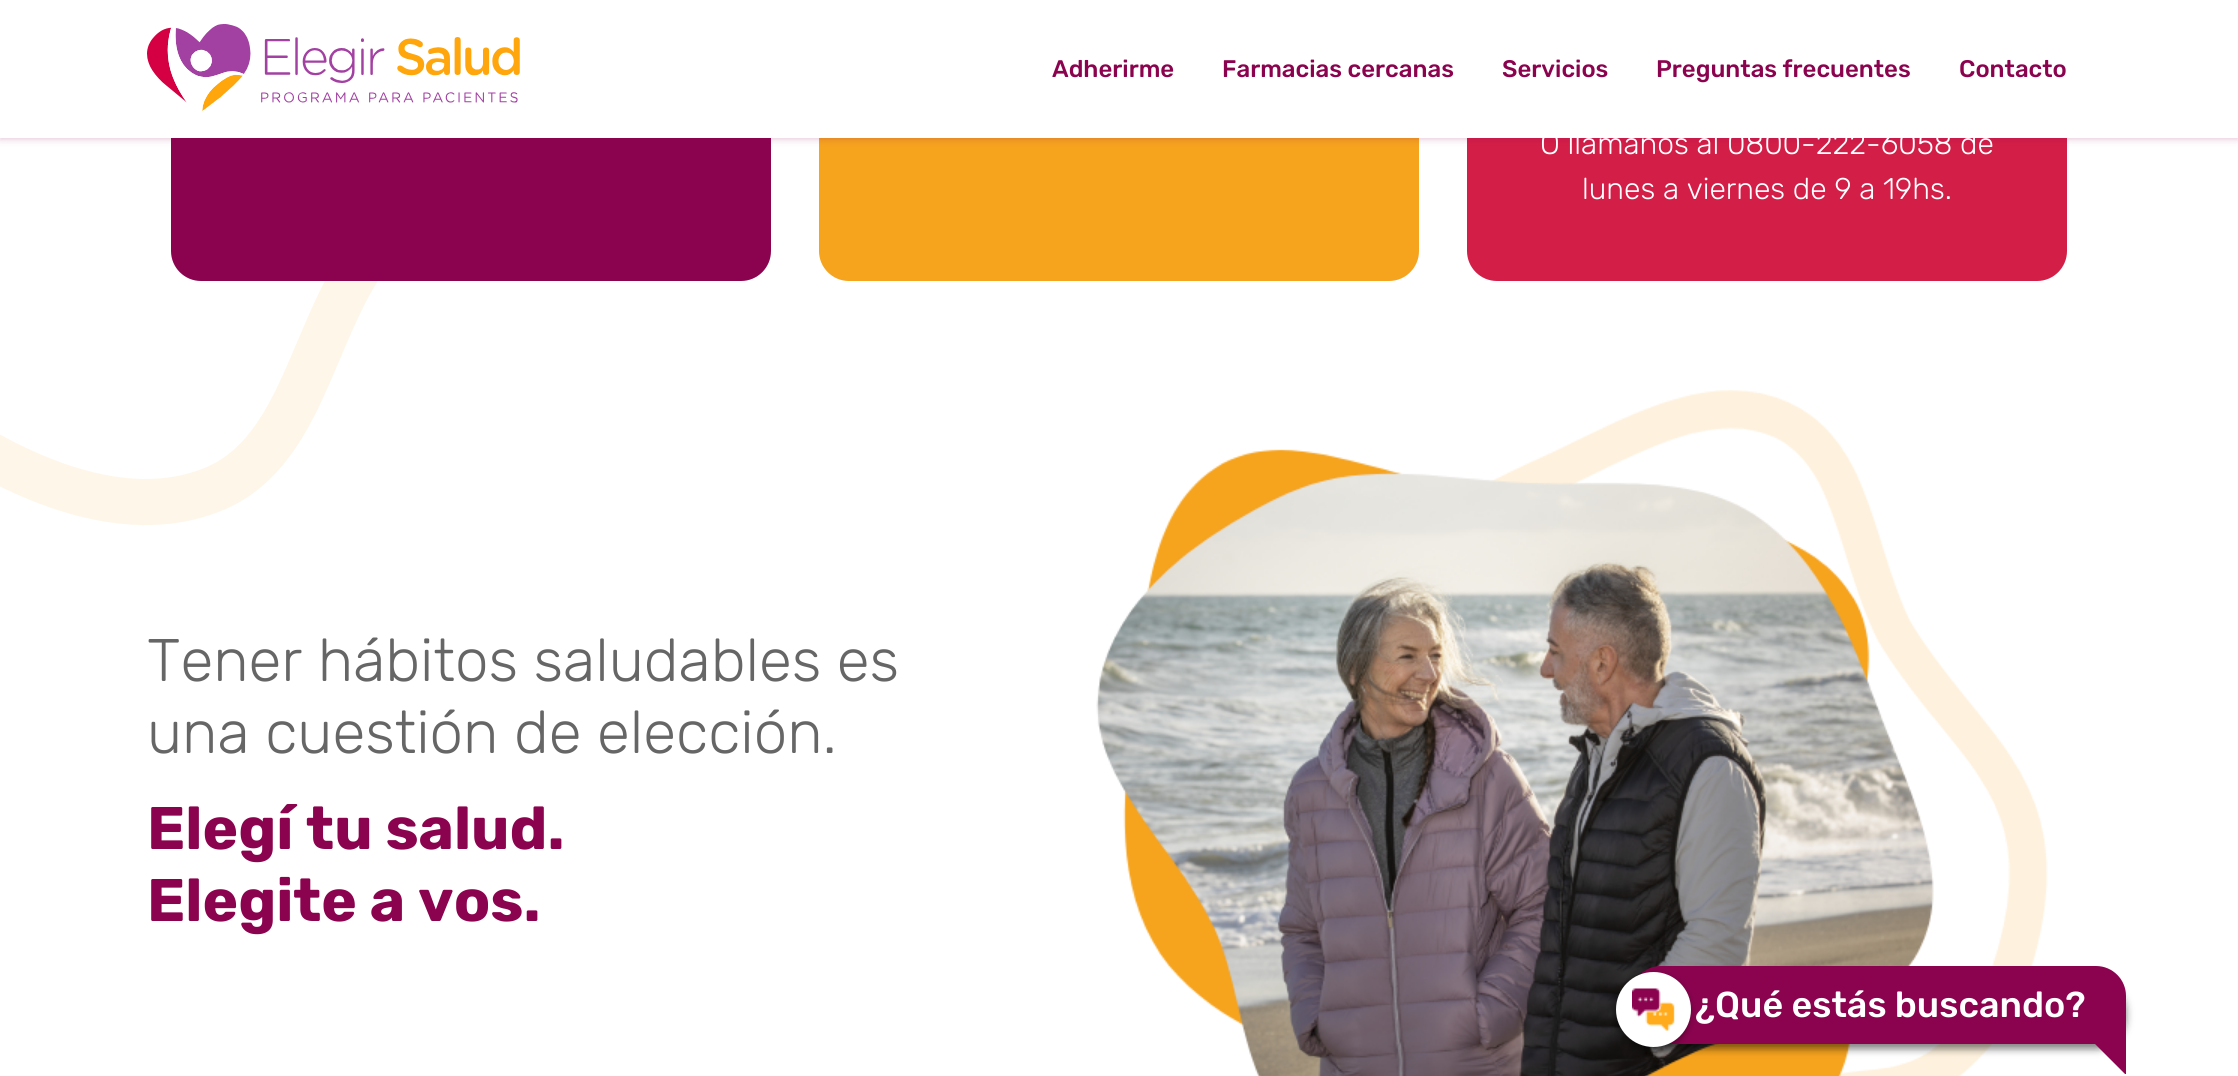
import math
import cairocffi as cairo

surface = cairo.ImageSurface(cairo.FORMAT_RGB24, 2238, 1076)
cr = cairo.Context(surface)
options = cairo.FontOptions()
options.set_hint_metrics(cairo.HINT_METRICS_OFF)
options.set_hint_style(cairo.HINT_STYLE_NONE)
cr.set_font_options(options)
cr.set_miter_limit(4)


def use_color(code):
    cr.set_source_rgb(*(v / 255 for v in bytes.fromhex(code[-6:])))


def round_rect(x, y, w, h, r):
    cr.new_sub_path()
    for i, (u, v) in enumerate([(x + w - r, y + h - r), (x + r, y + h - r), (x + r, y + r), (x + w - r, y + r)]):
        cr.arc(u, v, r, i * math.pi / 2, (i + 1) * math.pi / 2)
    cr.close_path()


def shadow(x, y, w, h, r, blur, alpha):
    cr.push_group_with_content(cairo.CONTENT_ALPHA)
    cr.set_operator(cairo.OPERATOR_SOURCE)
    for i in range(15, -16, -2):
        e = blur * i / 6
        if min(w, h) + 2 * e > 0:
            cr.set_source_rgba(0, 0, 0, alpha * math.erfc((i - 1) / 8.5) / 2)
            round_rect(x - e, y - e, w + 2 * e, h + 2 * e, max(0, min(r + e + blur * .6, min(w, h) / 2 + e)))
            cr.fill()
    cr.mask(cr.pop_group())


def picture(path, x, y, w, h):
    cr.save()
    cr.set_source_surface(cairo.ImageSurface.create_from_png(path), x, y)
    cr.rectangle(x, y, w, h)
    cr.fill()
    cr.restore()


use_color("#ffffff")
cr.paint()
cr.new_path()
cr.move_to(-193.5, 220.5)
cr.curve_to(-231.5, 150, -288, 85, -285, 5)
cr.curve_to(-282, -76.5, -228.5, -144.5, -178, -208.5)
cr.curve_to(-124.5, -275.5, -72, -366, 13, -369.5)
cr.curve_to(99, -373.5, 149.5, -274.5, 220, -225)
cr.curve_to(347, -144, 474, -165.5, 496, 73.5)
cr.curve_to(500.5, 191.5, 407.5, 196.5, 363, 261.5)
cr.curve_to(310.5, 339, 299, 456, 211.5, 490)
cr.curve_to(124, 524.5, 21.5, 479, -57, 427)
cr.curve_to(-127, 380, -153, 295, -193.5, 220.5)
use_color("#fef6e9")
cr.set_line_width(46.1)
cr.stroke()
use_color("#8b034f")
round_rect(171, -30, 600, 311, 30)
cr.fill()
use_color("#f6a31e")
round_rect(819, -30, 600, 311, 30)
cr.fill()
use_color("#d31e47")
round_rect(1467, -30, 600, 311, 30)
cr.fill()
use_color("#8b034f")
shadow(0, 0, 2238, 138, 0, 4, 0.3)
use_color("#ffffff")
cr.rectangle(0, 0, 2238, 138)
cr.fill()
picture("img1.png", 147, 24, 373, 87)
cr.select_font_face("Rubik Medium")
cr.set_font_size(24)
use_color("#8b034f")
cr.move_to(1052, 77)
cr.show_text("Adherirme")
cr.move_to(1222, 77)
cr.show_text("Farmacias cercanas")
cr.move_to(1502, 77)
cr.show_text("Servicios")
cr.move_to(1656, 77)
cr.show_text("Preguntas frecuentes")
cr.move_to(1959, 77)
cr.show_text("Contacto")
cr.select_font_face("Rubik Light")
cr.set_font_size(30)
use_color("#ffffff")
cr.move_to(1540, 154)
cr.show_text("O llamanos al 0800-222-6058 de")
cr.move_to(1582, 199)
cr.show_text("lunes a viernes de 9 a 19hs.")
cr.set_font_size(60)
use_color("#666666")
cr.move_to(147, 681)
cr.show_text("Tener hábitos saludables es")
cr.move_to(147, 753)
cr.show_text("una cuestión de elección.")
cr.select_font_face("Rubik", cairo.FONT_SLANT_NORMAL, cairo.FONT_WEIGHT_BOLD)
use_color("#8b034f")
cr.move_to(147, 849)
cr.show_text("Elegí tu salud.")
cr.move_to(147, 921)
cr.show_text("Elegite a vos.")
picture("img2.png", 1096, 390, 952, 686)
use_color("#000000")
shadow(1631, 981, 495, 68, 30, 4, 0.5)
use_color("#8b034f")
round_rect(1631, 966, 495, 78, 30)
cr.fill()
use_color("#000000")
shadow(1614, 975, 75, 75, 37.5, 4, 0.5)
use_color("#ffffff")
cr.arc(1653.5, 1009.5, 37.5, 0, 2 * math.pi)
cr.fill()
picture("img3.png", 1632, 988, 43, 43)
use_color("#8b034f")
cr.new_path()
cr.move_to(2126, 1015)
cr.line_to(2126, 1074)
cr.line_to(2125, 1074)
cr.line_to(2066, 1015)
cr.close_path()
cr.fill()
cr.select_font_face("Rubik Medium")
cr.set_font_size(36)
use_color("#ffffff")
cr.move_to(1695, 1017)
cr.show_text("¿Qué estás buscando?")
surface.write_to_png("result.png")
